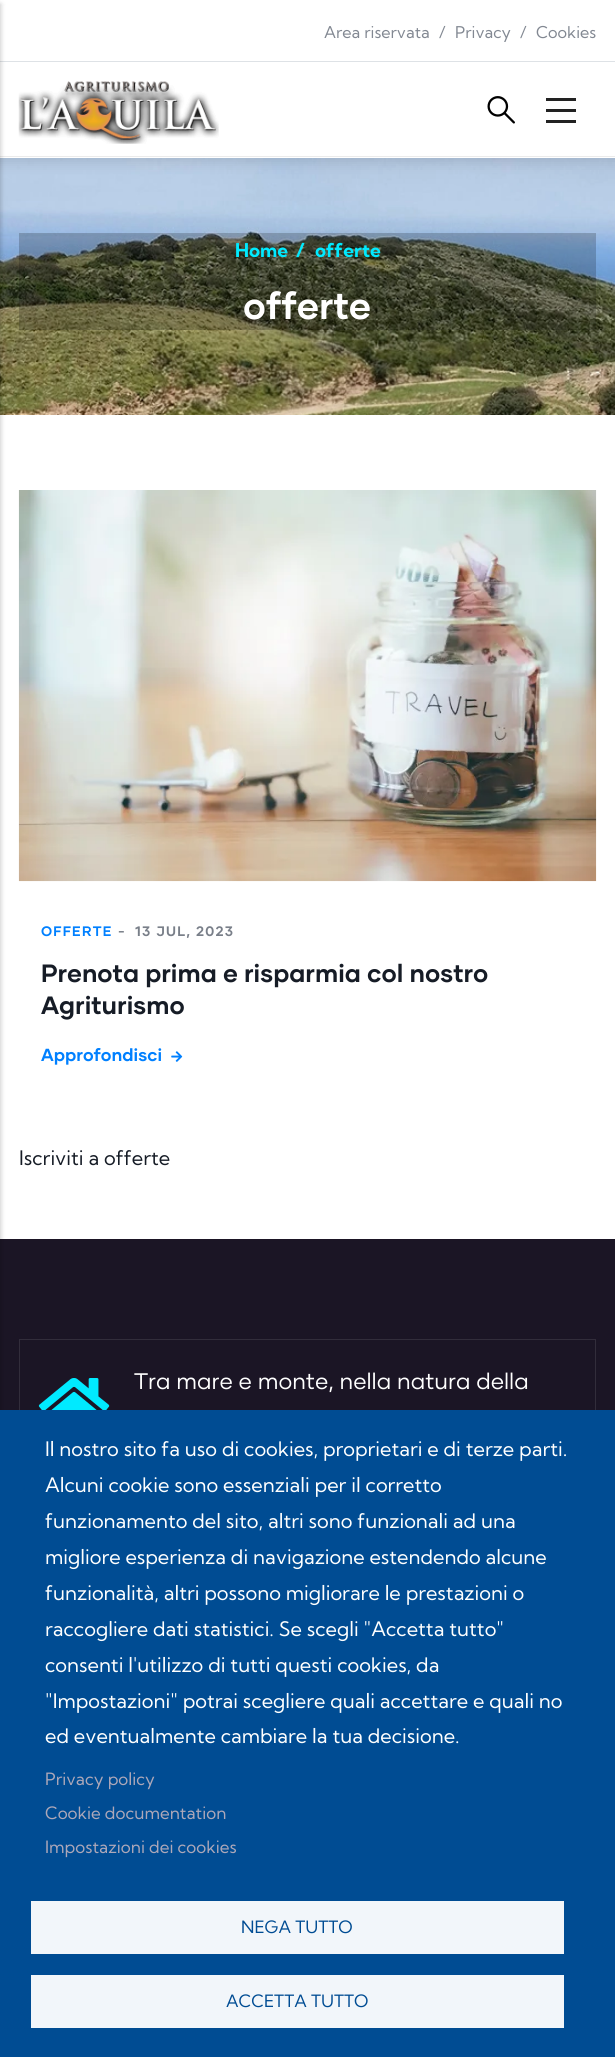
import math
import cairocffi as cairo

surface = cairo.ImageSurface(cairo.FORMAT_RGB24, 615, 2057)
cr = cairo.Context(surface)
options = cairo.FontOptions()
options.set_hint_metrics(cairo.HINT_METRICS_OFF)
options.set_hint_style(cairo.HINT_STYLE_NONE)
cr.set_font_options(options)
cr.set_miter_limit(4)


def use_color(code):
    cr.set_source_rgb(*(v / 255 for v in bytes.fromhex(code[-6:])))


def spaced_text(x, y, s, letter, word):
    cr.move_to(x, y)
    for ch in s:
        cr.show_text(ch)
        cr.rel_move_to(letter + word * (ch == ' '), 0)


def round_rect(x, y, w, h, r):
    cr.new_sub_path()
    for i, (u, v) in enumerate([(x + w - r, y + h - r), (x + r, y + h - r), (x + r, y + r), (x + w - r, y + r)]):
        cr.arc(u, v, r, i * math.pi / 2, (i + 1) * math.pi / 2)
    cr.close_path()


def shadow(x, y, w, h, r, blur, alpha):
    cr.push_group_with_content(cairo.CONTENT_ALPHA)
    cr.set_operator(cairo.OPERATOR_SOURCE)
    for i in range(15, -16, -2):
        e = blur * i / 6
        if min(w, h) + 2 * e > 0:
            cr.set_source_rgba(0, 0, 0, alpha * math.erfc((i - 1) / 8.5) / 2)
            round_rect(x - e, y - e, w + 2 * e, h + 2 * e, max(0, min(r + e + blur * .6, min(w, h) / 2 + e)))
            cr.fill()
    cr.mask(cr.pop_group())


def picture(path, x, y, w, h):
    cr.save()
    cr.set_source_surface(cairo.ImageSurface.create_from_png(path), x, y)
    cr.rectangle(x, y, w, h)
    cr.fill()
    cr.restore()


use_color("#ffffff")
cr.paint()
picture("img3.png", 0, 158, 615, 257)
use_color("#000000")
shadow(-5, -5, 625, 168, 0, 6, 0.1)
use_color("#ffffff")
cr.rectangle(0, 0, 615, 158)
cr.fill()
use_color("#ebebeb")
cr.rectangle(0, 156, 615, 1)
cr.fill()
use_color("#dee2e6")
cr.rectangle(0, 61, 615, 1)
cr.fill()
use_color("#1b1525")
cr.rectangle(0, 1239, 615, 171)
cr.fill()
use_color("#000000")
shadow(-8, 4, 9, 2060, 0, 2.5, 0.2)
use_color("#222222")
cr.rectangle(546, 98, 30, 3)
cr.fill()
cr.rectangle(546, 109, 30, 3)
cr.fill()
cr.rectangle(546, 120, 30, 3)
cr.fill()
picture("img1.png", 18, 81, 201, 63)
picture("img2.png", 487, 96, 28, 28)
cr.select_font_face("Kumbh Sans")
cr.set_font_size(16.25)
use_color("#828892")
cr.move_to(324, 38)
cr.show_text("Area riservata")
cr.move_to(439, 38)
cr.show_text("/")
cr.move_to(455, 38)
cr.show_text("Privacy")
cr.move_to(520, 38)
cr.show_text("/")
cr.move_to(536, 38)
cr.show_text("Cookies")
cr.set_source_rgba(0, 0, 0, 0.2)
cr.rectangle(19, 233, 577, 45)
cr.fill()
cr.select_font_face("Kumbh Sans", cairo.FONT_SLANT_NORMAL, cairo.FONT_WEIGHT_BOLD)
cr.set_font_size(19)
use_color("#00eaff")
cr.move_to(235, 257)
cr.show_text("Home")
cr.move_to(296, 257)
cr.show_text("/")
cr.move_to(315, 257)
cr.show_text("offerte")
cr.set_source_rgba(0, 0, 0, 0.2)
cr.rectangle(19, 278, 577, 52)
cr.fill()
cr.select_font_face("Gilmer", cairo.FONT_SLANT_NORMAL, cairo.FONT_WEIGHT_BOLD)
cr.set_font_size(37.5)
use_color("#ffffff")
cr.move_to(243, 319)
cr.show_text("offerte")
picture("img4.png", 18, 490, 579, 392)
cr.set_font_size(13.75)
use_color("#0080ff")
spaced_text(41, 936, "OFFERTE", 1.25, 0)
use_color("#797f89")
spaced_text(118, 936, "-", 1.25, 0)
spaced_text(135, 936, "13 JUL, 2023", 1.25, 0)
cr.set_font_size(25)
use_color("#161c26")
cr.move_to(41, 982)
cr.show_text("Prenota prima e risparmia col nostro")
cr.move_to(41, 1014)
cr.show_text("Agriturismo")
cr.set_font_size(17.5)
use_color("#0080ff")
cr.move_to(41, 1061)
cr.show_text("Approfondisci")
picture("img5.png", 171, 1051, 12, 11)
cr.select_font_face("Kumbh Sans")
cr.set_font_size(20)
use_color("#161c26")
cr.move_to(19, 1165)
cr.show_text("Iscriviti a offerte")
cr.rectangle(19.5, 1339.5, 576, 226)
use_color("#322d3b")
cr.set_line_width(1)
cr.stroke()
picture("img6.png", 38, 1378, 72, 32)
cr.select_font_face("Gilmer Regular")
cr.set_font_size(22.5)
use_color("#ffffff")
cr.move_to(134, 1389)
cr.show_text("Tra mare e monte, nella natura della")
use_color("#004c93")
cr.rectangle(0, 1410, 615, 647)
cr.fill()
cr.select_font_face("Kumbh Sans")
cr.set_font_size(20)
use_color("#ffffff")
cr.move_to(45, 1456)
cr.show_text("Il nostro sito fa uso di cookies, proprietari e di terze parti.")
cr.move_to(45, 1492)
cr.show_text("Alcuni cookie sono essenziali per il corretto")
cr.move_to(45, 1528)
cr.show_text("funzionamento del sito, altri sono funzionali ad una")
cr.move_to(45, 1564)
cr.show_text("migliore esperienza di navigazione estendendo alcune")
cr.move_to(45, 1600)
cr.show_text("funzionalità, altri possono migliorare le prestazioni o")
cr.move_to(45, 1636)
cr.show_text("raccogliere dati statistici. Se scegli \"Accetta tutto\"")
cr.move_to(45, 1672)
cr.show_text("consenti l'utilizzo di tutti questi cookies, da")
cr.move_to(45, 1708)
cr.show_text("\"Impostazioni\" potrai scegliere quali accettare e quali no")
cr.move_to(45, 1743)
cr.show_text("ed eventualmente cambiare la tua decisione.")
cr.set_font_size(17)
use_color("#aea8b9")
cr.move_to(45, 1785)
cr.show_text("Privacy policy")
cr.move_to(45, 1819)
cr.show_text("Cookie documentation")
cr.move_to(45, 1853)
cr.show_text("Impostazioni dei cookies")
use_color("#f2f6fa")
cr.rectangle(31, 1901, 533, 53)
cr.fill()
use_color("#004c93")
cr.move_to(241, 1933)
cr.show_text("NEGA TUTTO")
use_color("#f2f6fa")
cr.rectangle(31, 1975, 533, 53)
cr.fill()
use_color("#004c93")
cr.move_to(226, 2007)
cr.show_text("ACCETTA TUTTO")
surface.write_to_png("result.png")
